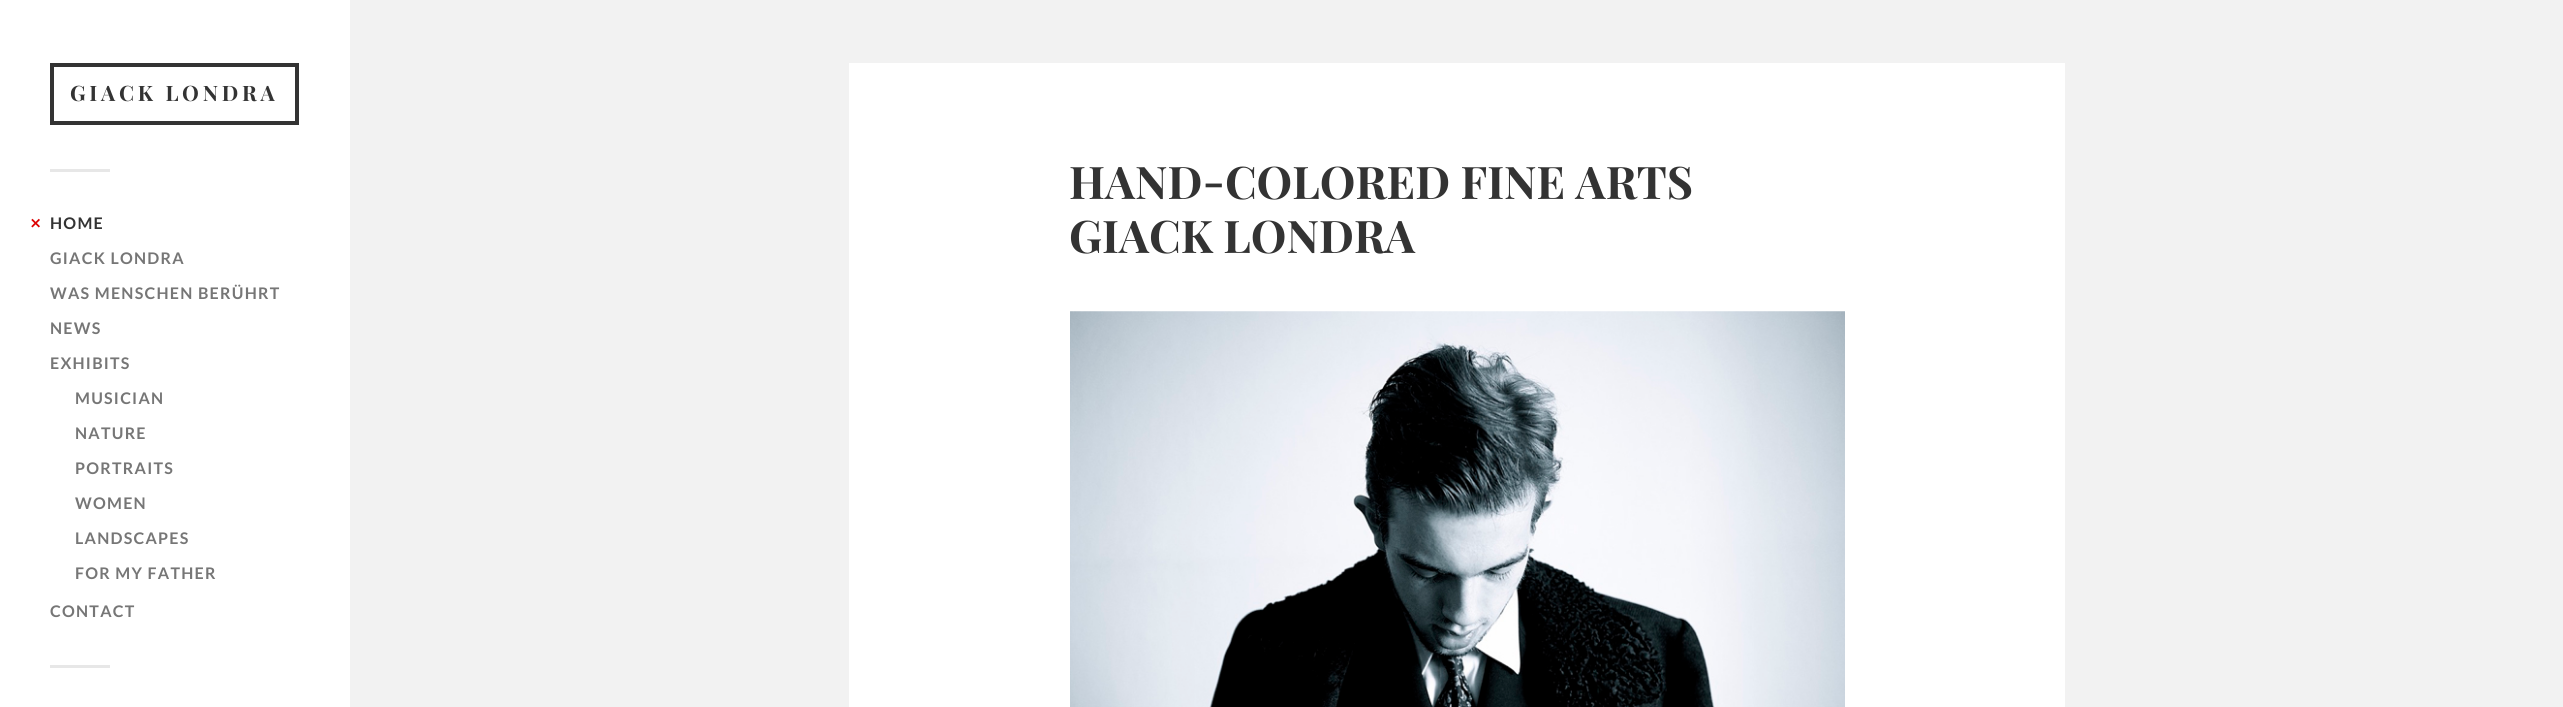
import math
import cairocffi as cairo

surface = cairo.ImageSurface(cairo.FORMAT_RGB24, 2563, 707)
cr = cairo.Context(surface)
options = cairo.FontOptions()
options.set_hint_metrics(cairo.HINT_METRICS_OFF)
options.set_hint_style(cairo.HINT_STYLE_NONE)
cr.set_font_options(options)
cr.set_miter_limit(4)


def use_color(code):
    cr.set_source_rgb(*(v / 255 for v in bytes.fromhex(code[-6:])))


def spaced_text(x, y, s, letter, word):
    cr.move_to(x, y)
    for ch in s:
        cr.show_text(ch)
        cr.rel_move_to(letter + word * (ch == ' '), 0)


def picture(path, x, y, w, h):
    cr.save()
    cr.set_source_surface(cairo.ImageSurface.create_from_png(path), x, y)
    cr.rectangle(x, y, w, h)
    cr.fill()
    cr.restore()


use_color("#f2f2f2")
cr.paint()
use_color("#ffffff")
cr.rectangle(0, 0, 350, 707)
cr.fill()
cr.rectangle(52, 65, 245, 58)
use_color("#333333")
cr.set_line_width(4)
cr.stroke()
cr.select_font_face("Playfair Display SC", cairo.FONT_SLANT_NORMAL, cairo.FONT_WEIGHT_BOLD)
cr.set_font_size(21.25)
spaced_text(70, 101, "GIACK LONDRA", 3.75, 0)
use_color("#e7e7e7")
cr.rectangle(50, 169, 60, 3)
cr.fill()
picture("img1.png", 31, 218, 9, 10)
cr.select_font_face("Lato", cairo.FONT_SLANT_NORMAL, cairo.FONT_WEIGHT_BOLD)
cr.set_font_size(16)
use_color("#333333")
spaced_text(50, 229, "HOME", 1.25, 0)
use_color("#767676")
spaced_text(50, 264, "GIACK LONDRA", 1.25, 0)
spaced_text(50, 299, "WAS MENSCHEN BERÜHRT", 1.25, 0)
spaced_text(50, 334, "NEWS", 1.25, 0)
spaced_text(50, 369, "EXHIBITS", 1.25, 0)
spaced_text(75, 404, "MUSICIAN", 1.25, 0)
spaced_text(75, 439, "NATURE", 1.25, 0)
spaced_text(75, 474, "PORTRAITS", 1.25, 0)
spaced_text(75, 509, "WOMEN", 1.25, 0)
spaced_text(75, 544, "LANDSCAPES", 1.25, 0)
spaced_text(75, 579, "FOR MY FATHER", 1.25, 0)
spaced_text(50, 617, "CONTACT", 1.25, 0)
use_color("#e7e7e7")
cr.rectangle(50, 665, 60, 3)
cr.fill()
use_color("#ffffff")
cr.rectangle(849, 63, 1216, 644)
cr.fill()
cr.select_font_face("Playfair Display SC", cairo.FONT_SLANT_NORMAL, cairo.FONT_WEIGHT_BOLD)
cr.set_font_size(45)
use_color("#333333")
cr.move_to(1069, 199)
cr.show_text("HAND-COLORED FINE ARTS")
cr.move_to(1069, 253)
cr.show_text("GIACK LONDRA")
picture("img2.png", 1070, 311, 775, 396)
surface.write_to_png("result.png")
